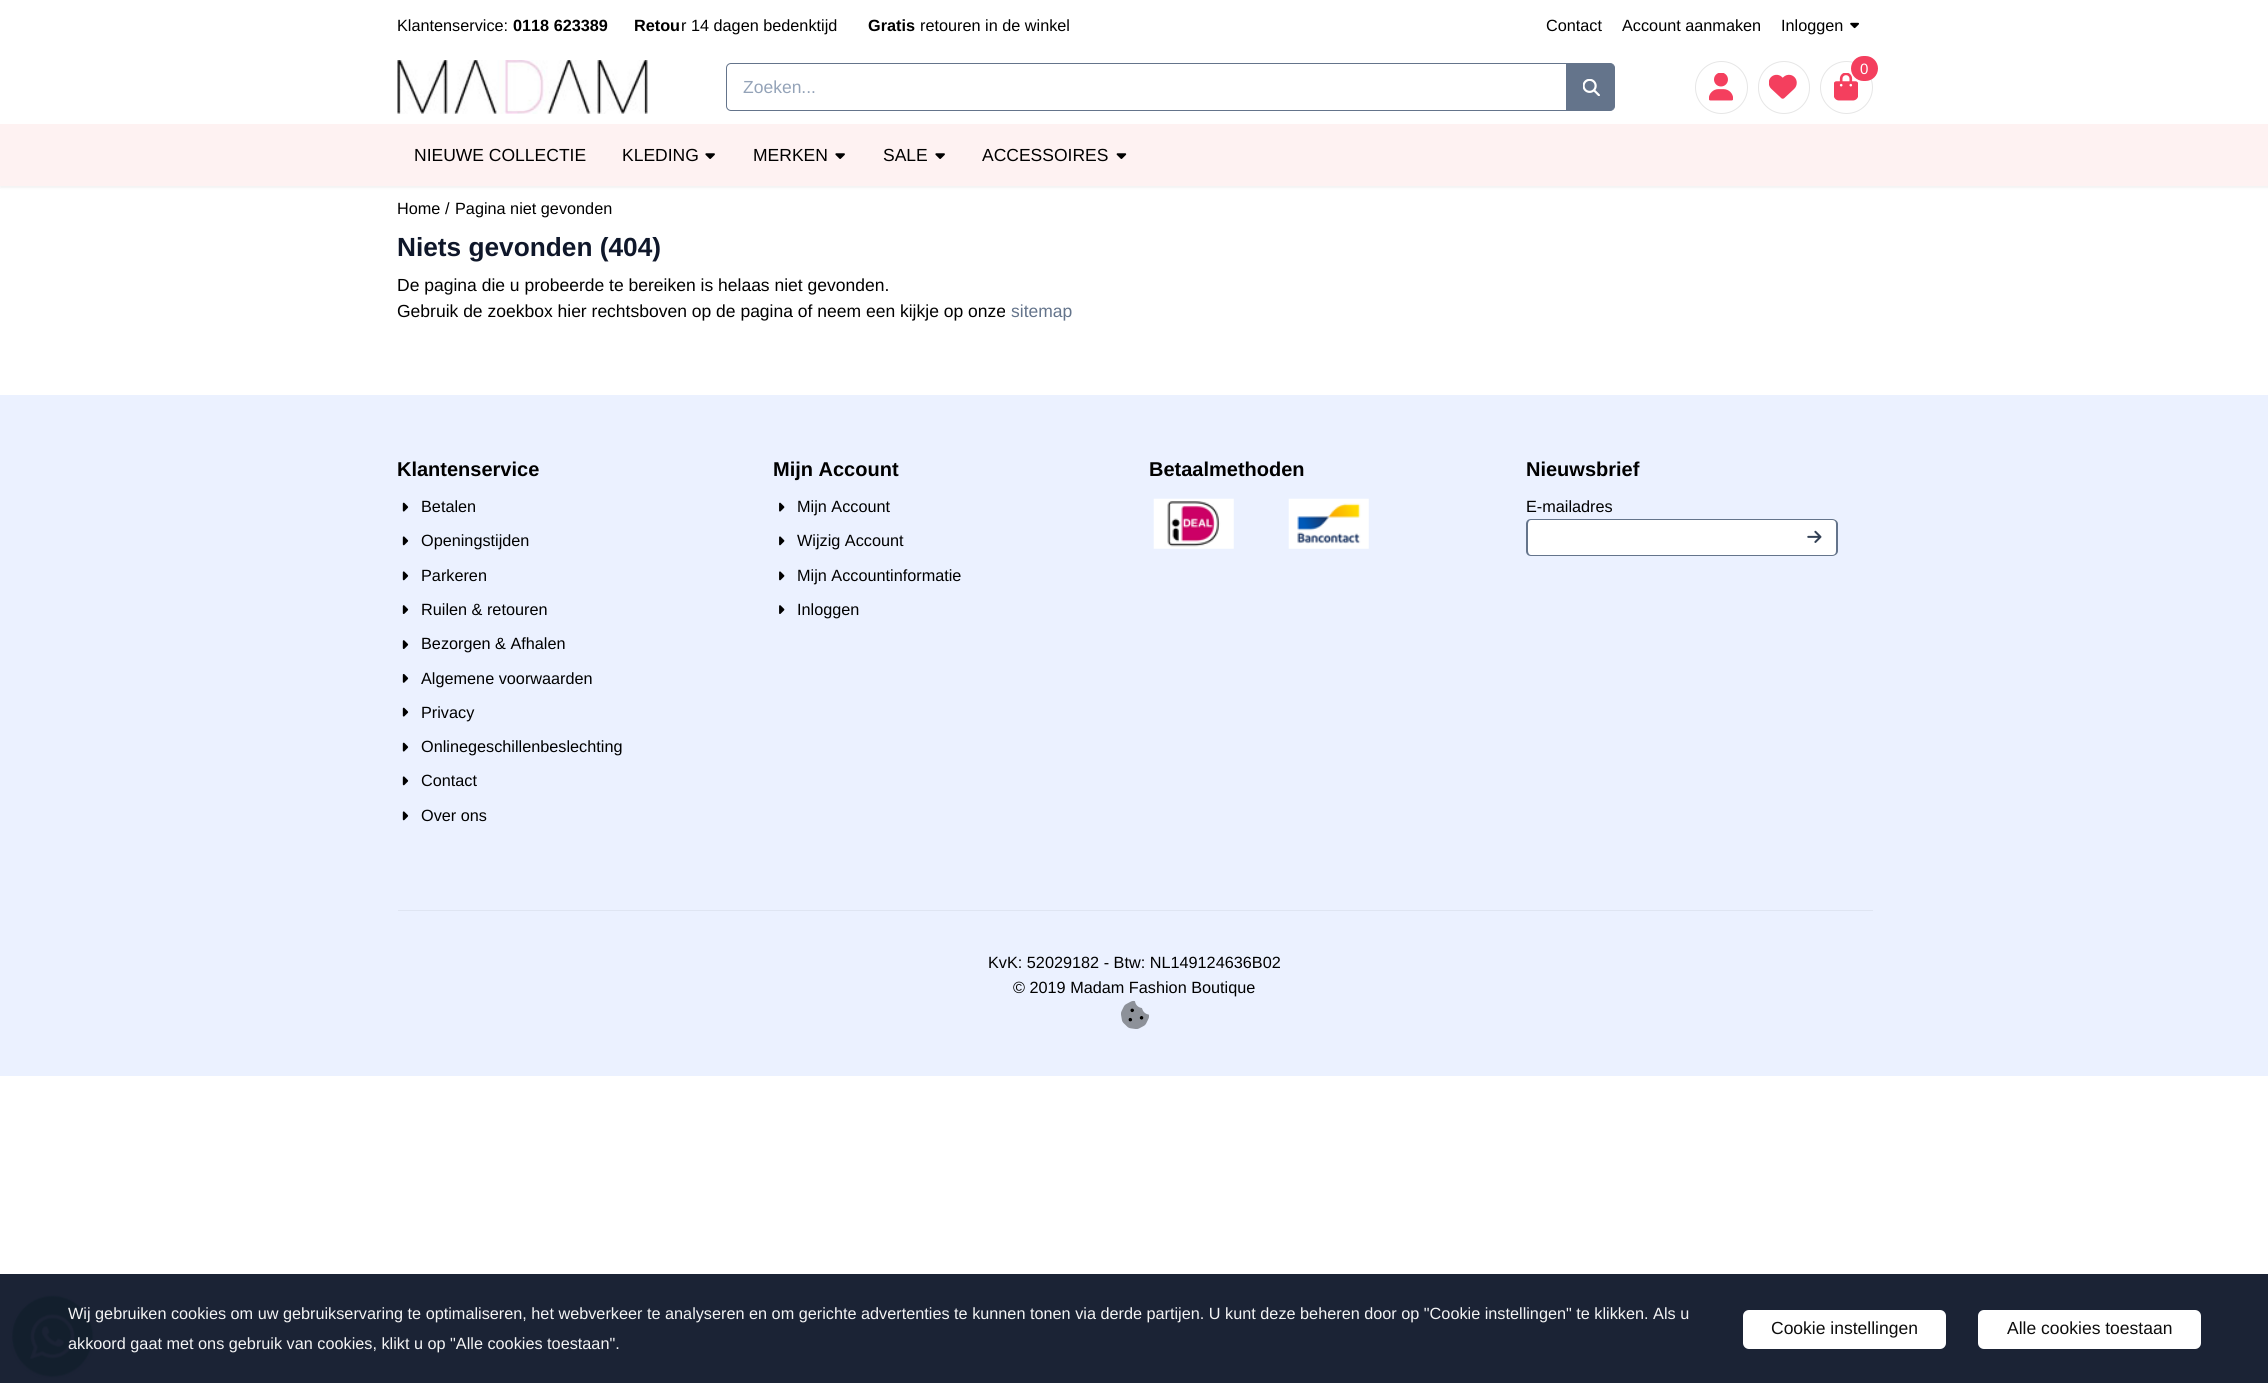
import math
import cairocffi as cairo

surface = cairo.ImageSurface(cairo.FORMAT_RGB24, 2268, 1383)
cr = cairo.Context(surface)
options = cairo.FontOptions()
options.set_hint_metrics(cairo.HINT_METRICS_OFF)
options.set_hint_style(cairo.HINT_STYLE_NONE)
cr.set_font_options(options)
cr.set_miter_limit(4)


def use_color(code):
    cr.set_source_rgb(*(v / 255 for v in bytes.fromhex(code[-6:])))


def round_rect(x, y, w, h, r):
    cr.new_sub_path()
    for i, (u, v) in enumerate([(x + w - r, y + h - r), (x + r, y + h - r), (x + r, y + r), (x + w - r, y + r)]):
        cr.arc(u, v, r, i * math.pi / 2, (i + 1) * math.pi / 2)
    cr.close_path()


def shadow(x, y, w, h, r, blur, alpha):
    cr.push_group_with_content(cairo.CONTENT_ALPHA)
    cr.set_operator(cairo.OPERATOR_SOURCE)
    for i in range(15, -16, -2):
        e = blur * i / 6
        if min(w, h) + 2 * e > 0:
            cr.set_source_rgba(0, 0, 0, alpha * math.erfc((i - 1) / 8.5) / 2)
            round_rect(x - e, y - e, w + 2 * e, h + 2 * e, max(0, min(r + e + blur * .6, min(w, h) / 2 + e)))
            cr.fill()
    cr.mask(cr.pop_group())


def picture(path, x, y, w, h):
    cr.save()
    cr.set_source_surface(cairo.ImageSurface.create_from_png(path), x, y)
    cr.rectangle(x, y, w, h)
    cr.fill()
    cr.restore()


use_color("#ffffff")
cr.paint()
use_color("#1b2335")
cr.rectangle(0, 1274, 2268, 109)
cr.fill()
cr.select_font_face("Arimo")
cr.set_font_size(16.25)
use_color("#000000")
cr.move_to(397, 31)
cr.show_text("Klantenservice:")
cr.select_font_face("Arimo", cairo.FONT_SLANT_NORMAL, cairo.FONT_WEIGHT_BOLD)
cr.move_to(513, 31)
cr.show_text("0118 623389")
cr.move_to(634, 31)
cr.show_text("Retou")
cr.select_font_face("Arimo")
cr.move_to(681, 31)
cr.show_text("r 14 dagen bedenktijd")
cr.select_font_face("Arimo", cairo.FONT_SLANT_NORMAL, cairo.FONT_WEIGHT_BOLD)
cr.move_to(868, 31)
cr.show_text("Gratis")
cr.select_font_face("Arimo")
cr.move_to(920, 31)
cr.show_text("retouren in de winkel")
cr.move_to(1546, 31)
cr.show_text("Contact")
cr.move_to(1622, 31)
cr.show_text("Account aanmaken")
cr.move_to(1781, 31)
cr.show_text("Inloggen")
picture("img1.png", 1850, 22, 9, 7)
picture("img2.png", 397, 60, 251, 54)
cr.arc(1721.5, 87.5, 26, 0, 2 * math.pi)
use_color("#e6e6e6")
cr.set_line_width(1)
cr.stroke()
picture("img3.png", 1709, 73, 24, 28)
round_rect(1758.5, 61.5, 51, 52, 25.5)
cr.stroke()
picture("img4.png", 1769, 74, 28, 25)
cr.arc(1846.5, 87.5, 26, 0, 2 * math.pi)
cr.stroke()
picture("img5.png", 1834, 73, 24, 28)
use_color("#f43f5e")
round_rect(1851, 56, 27, 25, 12.5)
cr.fill()
cr.set_font_size(15)
use_color("#ffffff")
cr.move_to(1860, 74)
cr.show_text("0")
cr.new_path()
cr.move_to(731, 63.5)
cr.line_to(1567.5, 63.5)
cr.line_to(1567.5, 110.5)
cr.line_to(731, 110.5)
cr.curve_to(728.5, 110.5, 726.5, 108.5, 726.5, 106)
cr.line_to(726.5, 68)
cr.curve_to(726.5, 65.5, 728.5, 63.5, 731, 63.5)
cr.close_path()
use_color("#64748b")
cr.stroke()
cr.set_font_size(17.5)
use_color("#94a3b8")
cr.move_to(743, 93)
cr.show_text("Zoeken...")
use_color("#64748b")
cr.new_path()
cr.move_to(1566.5, 63.5)
cr.line_to(1610, 63.5)
cr.curve_to(1612.5, 63.5, 1614.5, 65.5, 1614.5, 68)
cr.line_to(1614.5, 106)
cr.curve_to(1614.5, 108.5, 1612.5, 110.5, 1610, 110.5)
cr.line_to(1566.5, 110.5)
cr.close_path()
cr.fill_preserve()
cr.stroke()
picture("img6.png", 1583, 79, 17, 17)
use_color("#000000")
shadow(0, 125, 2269, 63, 0, 1, 0.05)
use_color("#fef2f2")
cr.rectangle(0, 124, 2268, 62)
cr.fill()
use_color("#000000")
cr.move_to(414, 161)
cr.show_text("NIEUWE COLLECTIE")
cr.move_to(622, 161)
cr.show_text("KLEDING")
picture("img7.png", 705, 153, 10, 6)
cr.move_to(753, 161)
cr.show_text("MERKEN")
picture("img7.png", 835, 153, 10, 6)
cr.move_to(883, 161)
cr.show_text("SALE")
picture("img7.png", 935, 153, 10, 6)
cr.move_to(982, 161)
cr.show_text("ACCESSOIRES")
picture("img8.png", 1116, 153, 11, 6)
cr.set_font_size(16.25)
cr.move_to(397, 214)
cr.show_text("Home")
cr.move_to(445, 214)
cr.show_text("/")
cr.move_to(455, 214)
cr.show_text("Pagina niet gevonden")
cr.select_font_face("Arimo", cairo.FONT_SLANT_NORMAL, cairo.FONT_WEIGHT_BOLD)
cr.set_font_size(26.25)
use_color("#0f172a")
cr.move_to(397, 256)
cr.show_text("Niets gevonden (404)")
cr.select_font_face("Arimo")
cr.set_font_size(17.5)
use_color("#000000")
cr.move_to(397, 291)
cr.show_text("De pagina die u probeerde te bereiken is helaas niet gevonden.")
cr.move_to(397, 317)
cr.show_text("Gebruik de zoekbox hier rechtsboven op de pagina of neem een kijkje op onze")
use_color("#64748b")
cr.move_to(1011, 317)
cr.show_text("sitemap")
use_color("#ebf1ff")
cr.rectangle(0, 395, 2268, 681)
cr.fill()
cr.select_font_face("Arimo", cairo.FONT_SLANT_NORMAL, cairo.FONT_WEIGHT_BOLD)
cr.set_font_size(20)
use_color("#000000")
cr.move_to(397, 476)
cr.show_text("Klantenservice")
picture("img9.png", 402, 502, 7, 10)
cr.select_font_face("Arimo")
cr.set_font_size(16.25)
cr.move_to(421, 512)
cr.show_text("Betalen")
picture("img10.png", 402, 536, 7, 10)
cr.move_to(421, 546)
cr.show_text("Openingstijden")
picture("img10.png", 402, 571, 7, 10)
cr.move_to(421, 581)
cr.show_text("Parkeren")
picture("img11.png", 402, 605, 7, 9)
cr.move_to(421, 615)
cr.show_text("Ruilen & retouren")
picture("img11.png", 402, 640, 7, 9)
cr.move_to(421, 649)
cr.show_text("Bezorgen & Afhalen")
picture("img12.png", 402, 673, 7, 10)
cr.move_to(421, 684)
cr.show_text("Algemene voorwaarden")
picture("img9.png", 402, 707, 7, 10)
cr.move_to(421, 718)
cr.show_text("Privacy")
picture("img9.png", 402, 742, 7, 10)
cr.move_to(421, 752)
cr.show_text("Onlinegeschillenbeslechting")
picture("img10.png", 402, 776, 7, 10)
cr.move_to(421, 786)
cr.show_text("Contact")
picture("img10.png", 402, 811, 7, 10)
cr.move_to(421, 821)
cr.show_text("Over ons")
cr.select_font_face("Arimo", cairo.FONT_SLANT_NORMAL, cairo.FONT_WEIGHT_BOLD)
cr.set_font_size(20)
cr.move_to(773, 476)
cr.show_text("Mijn Account")
picture("img13.png", 779, 502, 6, 10)
cr.select_font_face("Arimo")
cr.set_font_size(16.25)
cr.move_to(797, 512)
cr.show_text("Mijn Account")
picture("img14.png", 779, 536, 6, 10)
cr.move_to(797, 546)
cr.show_text("Wijzig Account")
picture("img14.png", 779, 571, 6, 10)
cr.move_to(797, 581)
cr.show_text("Mijn Accountinformatie")
picture("img15.png", 779, 605, 6, 9)
cr.move_to(797, 615)
cr.show_text("Inloggen")
cr.select_font_face("Arimo", cairo.FONT_SLANT_NORMAL, cairo.FONT_WEIGHT_BOLD)
cr.set_font_size(20)
cr.move_to(1149, 476)
cr.show_text("Betaalmethoden")
picture("img16.png", 1153, 498, 81, 51)
picture("img17.png", 1288, 498, 81, 51)
cr.move_to(1526, 476)
cr.show_text("Nieuwsbrief")
cr.select_font_face("Arimo")
cr.set_font_size(16.25)
cr.move_to(1526, 512)
cr.show_text("E-mailadres")
use_color("#ffffff")
cr.new_path()
cr.move_to(1532, 520)
cr.line_to(1796, 520)
cr.line_to(1796, 555)
cr.line_to(1532, 555)
cr.curve_to(1530, 555, 1528, 553, 1528, 551)
cr.line_to(1528, 524)
cr.curve_to(1528, 522, 1530, 520, 1532, 520)
cr.close_path()
cr.fill()
use_color("#64748b")
cr.set_fill_rule(cairo.FILL_RULE_EVEN_ODD)
cr.new_path()
cr.move_to(1531, 519)
cr.line_to(1796, 519)
cr.line_to(1796, 556)
cr.line_to(1531, 556)
cr.curve_to(1528, 556, 1526, 554, 1526, 551)
cr.line_to(1526, 524)
cr.curve_to(1526, 521, 1528, 519, 1531, 519)
cr.close_path()
cr.move_to(1531, 520)
cr.line_to(1796, 520)
cr.line_to(1796, 555)
cr.line_to(1531, 555)
cr.curve_to(1529, 555, 1528, 553, 1528, 551)
cr.line_to(1528, 524)
cr.curve_to(1528, 522, 1529, 520, 1531, 520)
cr.close_path()
cr.fill()
use_color("#ffffff")
cr.new_path()
cr.move_to(1791, 519)
cr.line_to(1833, 519)
cr.curve_to(1836, 519, 1838, 521, 1838, 524)
cr.line_to(1838, 551)
cr.curve_to(1838, 554, 1836, 556, 1833, 556)
cr.line_to(1791, 556)
cr.close_path()
cr.fill()
use_color("#64748b")
cr.new_path()
cr.move_to(1791, 519)
cr.line_to(1832, 519)
cr.curve_to(1835, 519, 1838, 521, 1838, 524)
cr.line_to(1838, 551)
cr.curve_to(1838, 554, 1835, 556, 1832, 556)
cr.line_to(1791, 556)
cr.close_path()
cr.move_to(1791, 520)
cr.line_to(1832, 520)
cr.curve_to(1835, 520, 1836, 522, 1836, 524)
cr.line_to(1836, 551)
cr.curve_to(1836, 553, 1835, 555, 1832, 555)
cr.line_to(1791, 555)
cr.close_path()
cr.fill()
picture("img18.png", 1807, 530, 15, 13)
use_color("#dfe5f2")
cr.rectangle(398, 910, 1475, 1)
cr.fill()
use_color("#000000")
cr.move_to(988, 968)
cr.show_text("KvK: 52029182 - Btw: NL149124636B02")
cr.move_to(1013, 993)
cr.show_text("© 2019 Madam Fashion Boutique")
picture("img19.png", 1121, 1000, 28, 29)
picture("img20.png", 11, 1295, 83, 83)
use_color("#f4f4f5")
cr.move_to(68, 1319)
cr.show_text("Wij gebruiken cookies om uw gebruikservaring te optimaliseren, het webverkeer te analyseren en om gerichte advertenties te kunnen tonen via derde partijen. U kunt deze beheren door op \"Cookie instellingen\" te klikken. Als u")
cr.move_to(68, 1349)
cr.show_text("akkoord gaat met ons gebruik van cookies, klikt u op \"Alle cookies toestaan\".")
use_color("#ffffff")
round_rect(1743, 1310, 203, 39, 6)
cr.fill()
cr.set_font_size(17.5)
use_color("#0d0d0d")
cr.move_to(1771, 1334)
cr.show_text("Cookie instellingen")
use_color("#ffffff")
round_rect(1978, 1310, 223, 39, 6)
cr.fill()
use_color("#0d0d0d")
cr.move_to(2007, 1334)
cr.show_text("Alle cookies toestaan")
surface.write_to_png("result.png")
